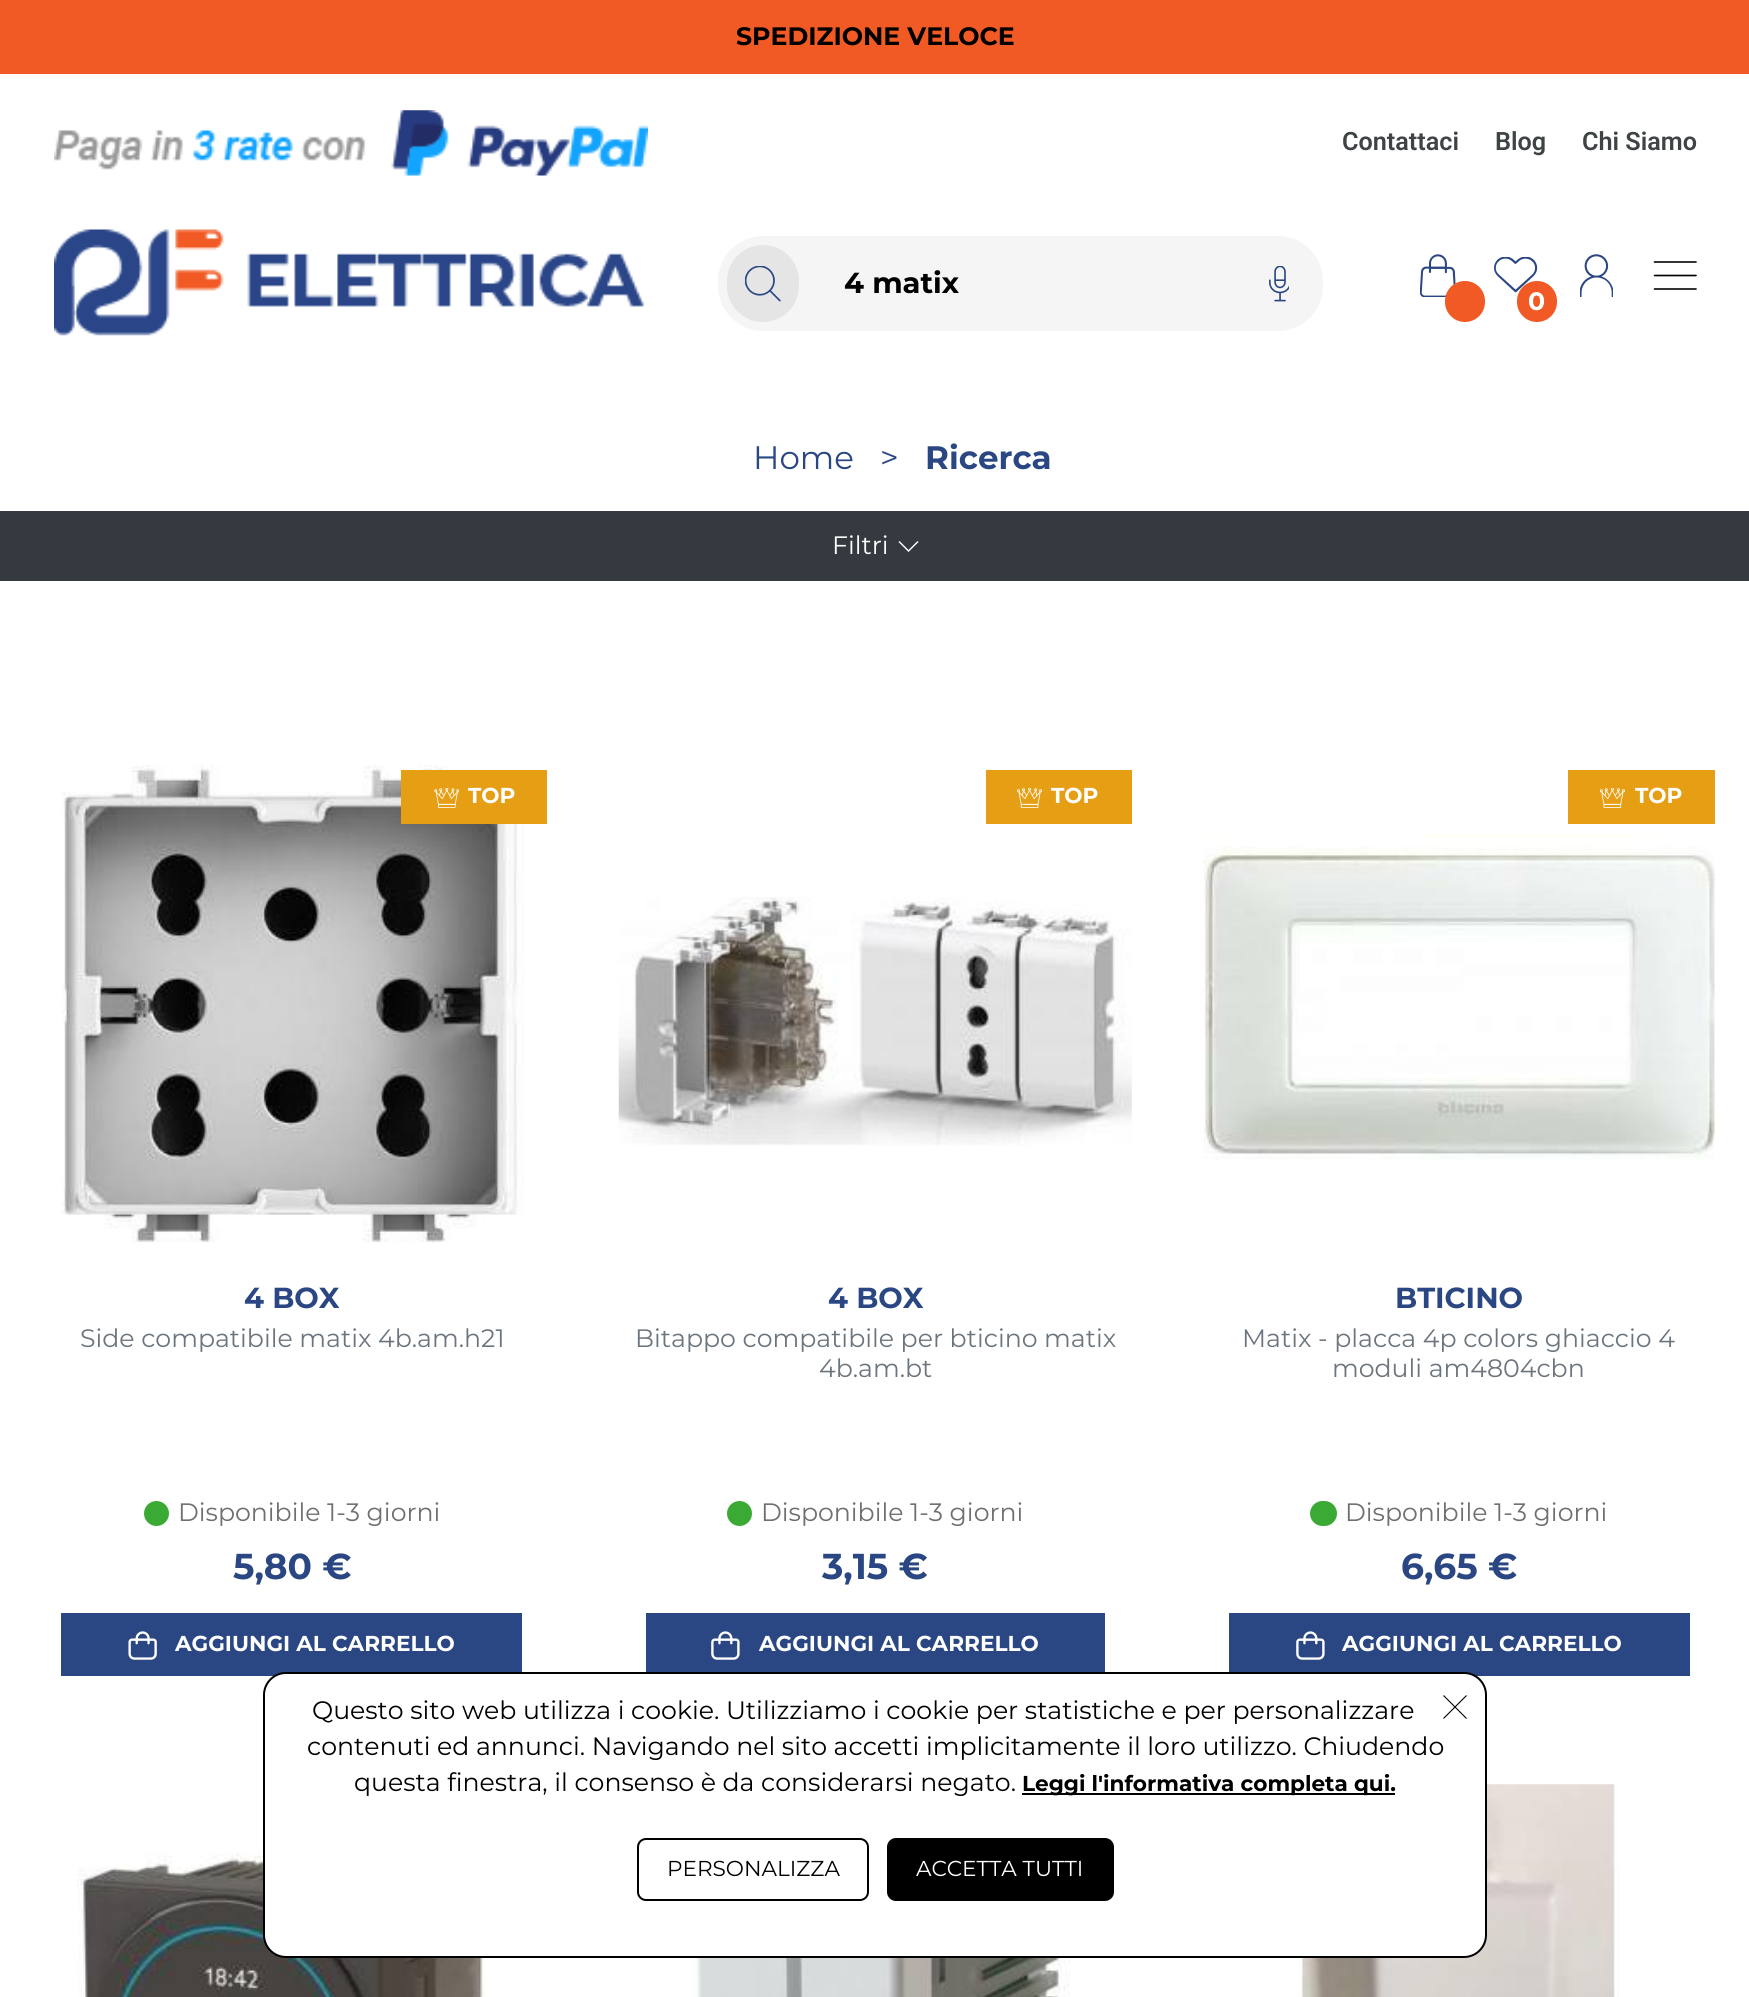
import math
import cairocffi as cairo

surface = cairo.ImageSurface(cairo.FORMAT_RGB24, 1749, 1997)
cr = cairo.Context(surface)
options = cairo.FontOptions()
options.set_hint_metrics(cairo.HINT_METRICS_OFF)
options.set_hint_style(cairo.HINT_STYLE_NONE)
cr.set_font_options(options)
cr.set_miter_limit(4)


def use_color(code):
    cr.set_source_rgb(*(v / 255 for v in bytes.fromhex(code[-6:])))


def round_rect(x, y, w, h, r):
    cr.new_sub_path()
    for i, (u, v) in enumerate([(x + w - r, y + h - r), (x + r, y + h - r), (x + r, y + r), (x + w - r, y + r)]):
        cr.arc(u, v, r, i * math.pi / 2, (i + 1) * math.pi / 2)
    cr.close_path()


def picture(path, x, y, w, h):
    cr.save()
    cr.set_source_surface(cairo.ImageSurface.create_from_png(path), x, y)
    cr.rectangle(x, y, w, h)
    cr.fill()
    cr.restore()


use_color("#ffffff")
cr.paint()
use_color("#f15a24")
cr.rectangle(0, 0, 1749, 74)
cr.fill()
cr.select_font_face("Montserrat", cairo.FONT_SLANT_NORMAL, cairo.FONT_WEIGHT_BOLD)
cr.set_font_size(25.2)
use_color("#000000")
cr.move_to(736, 45)
cr.show_text("SPEDIZIONE VELOCE")
picture("img1.png", 54, 110, 594, 66)
cr.select_font_face("Roboto SemiBold")
use_color("#3e4446")
cr.move_to(1342, 150)
cr.show_text("Contattaci")
cr.move_to(1495, 150)
cr.show_text("Blog")
cr.move_to(1582, 150)
cr.show_text("Chi Siamo")
picture("img2.png", 54, 229, 590, 107)
use_color("#f5f5f5")
round_rect(718, 236, 605, 95, 45)
cr.fill()
use_color("#e5e5e5")
round_rect(727, 245, 72, 77, 36)
cr.fill()
picture("img3.png", 745, 266, 36, 36)
cr.select_font_face("Montserrat", cairo.FONT_SLANT_NORMAL, cairo.FONT_WEIGHT_BOLD)
cr.set_font_size(29)
use_color("#000000")
cr.move_to(844, 293)
cr.show_text("4 matix")
picture("img4.png", 1269, 266, 20, 36)
picture("img5.png", 1420, 254, 36, 43)
use_color("#f15a24")
round_rect(1445, 281, 40, 41, 20)
cr.fill()
picture("img6.png", 1580, 254, 33, 43)
cr.new_path()
cr.move_to(1654.5, 262)
cr.line_to(1696, 262)
cr.move_to(1654.5, 289)
cr.line_to(1696, 289)
cr.move_to(1654.5, 275.5)
cr.line_to(1696, 275.5)
use_color("#000000")
cr.set_line_width(1.6)
cr.set_line_cap(cairo.LINE_CAP_ROUND)
cr.stroke()
picture("img7.png", 1494, 257, 44, 36)
use_color("#f15a24")
round_rect(1517, 281, 40, 41, 20)
cr.fill()
cr.set_font_size(25.2)
use_color("#ffffff")
cr.move_to(1528, 310)
cr.show_text("0")
cr.select_font_face("Montserrat")
cr.set_font_size(32.5)
use_color("#2a4783")
cr.move_to(753, 469)
cr.show_text("Home")
cr.move_to(880, 469)
cr.show_text(">")
cr.select_font_face("Montserrat", cairo.FONT_SLANT_NORMAL, cairo.FONT_WEIGHT_BOLD)
cr.move_to(925, 469)
cr.show_text("Ricerca")
use_color("#343a40")
cr.rectangle(0, 511, 1749, 70)
cr.fill()
cr.select_font_face("Montserrat")
cr.set_font_size(25.2)
use_color("#ffffff")
cr.move_to(832, 554)
cr.show_text("Filtri")
cr.new_path()
cr.move_to(918, 541.5)
cr.line_to(908.5, 551)
cr.line_to(899, 541.5)
cr.set_line_width(1.4)
cr.set_line_cap(cairo.LINE_CAP_BUTT)
cr.stroke()
picture("img8.png", 61, 765, 463, 478)
use_color("#e69e14")
cr.rectangle(401, 770, 146, 54)
cr.fill()
picture("img9.png", 434, 788, 25, 20)
cr.select_font_face("Montserrat", cairo.FONT_SLANT_NORMAL, cairo.FONT_WEIGHT_BOLD)
cr.set_font_size(21.6)
use_color("#ffffff")
cr.move_to(468, 803)
cr.show_text("TOP")
cr.set_font_size(29)
use_color("#2a4783")
cr.move_to(244, 1308)
cr.show_text("4 BOX")
cr.select_font_face("Montserrat")
cr.set_font_size(25.2)
use_color("#6c757d")
cr.move_to(80, 1347)
cr.show_text("Side compatibile matix 4b.am.h21")
use_color("#3aaa35")
cr.new_path()
cr.arc(156.5, 1513.5, 12.5, 0, 2 * math.pi)
cr.fill()
use_color("#706f6f")
cr.move_to(178, 1521)
cr.show_text("Disponibile 1-3 giorni")
cr.select_font_face("Montserrat", cairo.FONT_SLANT_NORMAL, cairo.FONT_WEIGHT_BOLD)
cr.set_font_size(36)
use_color("#2a4783")
cr.move_to(233, 1579)
cr.show_text("5,80 €")
cr.rectangle(61, 1613, 461, 63)
cr.fill()
picture("img10.png", 128, 1631, 29, 29)
cr.set_font_size(21.6)
use_color("#ffffff")
cr.move_to(175, 1651)
cr.show_text("AGGIUNGI AL CARRELLO")
use_color("#e69e14")
cr.rectangle(986, 770, 146, 54)
cr.fill()
picture("img11.png", 1017, 788, 25, 20)
use_color("#ffffff")
cr.move_to(1051, 803)
cr.show_text("TOP")
picture("img12.png", 618, 897, 514, 249)
cr.set_font_size(29)
use_color("#2a4783")
cr.move_to(828, 1308)
cr.show_text("4 BOX")
cr.select_font_face("Montserrat")
cr.set_font_size(25.2)
use_color("#6c757d")
cr.move_to(635, 1347)
cr.show_text("Bitappo compatibile per bticino matix")
cr.move_to(819, 1377)
cr.show_text("4b.am.bt")
use_color("#3aaa35")
cr.new_path()
cr.arc(739.5, 1513.5, 12.5, 0, 2 * math.pi)
cr.fill()
use_color("#706f6f")
cr.move_to(761, 1521)
cr.show_text("Disponibile 1-3 giorni")
cr.select_font_face("Montserrat", cairo.FONT_SLANT_NORMAL, cairo.FONT_WEIGHT_BOLD)
cr.set_font_size(36)
use_color("#2a4783")
cr.move_to(822, 1579)
cr.show_text("3,15 €")
cr.rectangle(646, 1613, 459, 59)
cr.fill()
picture("img13.png", 711, 1631, 29, 29)
cr.set_font_size(21.6)
use_color("#ffffff")
cr.move_to(759, 1651)
cr.show_text("AGGIUNGI AL CARRELLO")
use_color("#e69e14")
cr.rectangle(1568, 770, 147, 54)
cr.fill()
picture("img14.png", 1600, 788, 25, 20)
use_color("#ffffff")
cr.move_to(1635, 803)
cr.show_text("TOP")
picture("img15.png", 1203, 834, 512, 326)
cr.set_font_size(29)
use_color("#2a4783")
cr.move_to(1395, 1308)
cr.show_text("BTICINO")
cr.select_font_face("Montserrat")
cr.set_font_size(25.2)
use_color("#6c757d")
cr.move_to(1242, 1347)
cr.show_text("Matix - placca 4p colors ghiaccio 4")
cr.move_to(1332, 1377)
cr.show_text("moduli am4804cbn")
use_color("#3aaa35")
round_rect(1310, 1501, 27, 25, 12.5)
cr.fill()
use_color("#706f6f")
cr.move_to(1345, 1521)
cr.show_text("Disponibile 1-3 giorni")
cr.select_font_face("Montserrat", cairo.FONT_SLANT_NORMAL, cairo.FONT_WEIGHT_BOLD)
cr.set_font_size(36)
use_color("#2a4783")
cr.move_to(1401, 1579)
cr.show_text("6,65 €")
cr.rectangle(1229, 1613, 461, 63)
cr.fill()
picture("img13.png", 1296, 1631, 29, 29)
cr.set_font_size(21.6)
use_color("#ffffff")
cr.move_to(1342, 1651)
cr.show_text("AGGIUNGI AL CARRELLO")
picture("img16.png", 77, 1852, 412, 145)
picture("img17.png", 691, 1958, 380, 39)
picture("img18.png", 1297, 1784, 322, 213)
round_rect(264, 1673, 1222, 284, 22)
cr.fill_preserve()
use_color("#000000")
cr.set_line_width(2)
cr.stroke()
cr.select_font_face("Montserrat")
cr.set_font_size(25.2)
cr.move_to(312, 1719)
cr.show_text("Questo sito web utilizza i cookie. Utilizziamo i cookie per statistiche e per personalizzare")
cr.new_path()
cr.move_to(1443.5, 1695.5)
cr.line_to(1466.5, 1718.5)
cr.move_to(1466.5, 1695.5)
cr.line_to(1443.5, 1718.5)
cr.set_line_width(1.1)
cr.stroke()
cr.move_to(307, 1755)
cr.show_text("contenuti ed annunci. Navigando nel sito accetti implicitamente il loro utilizzo. Chiudendo")
cr.move_to(354, 1791)
cr.show_text("questa finestra, il consenso è da considerarsi negato.")
cr.rectangle(1022, 1793, 373, 2)
cr.fill()
cr.select_font_face("Montserrat", cairo.FONT_SLANT_NORMAL, cairo.FONT_WEIGHT_BOLD)
cr.set_font_size(21.6)
cr.move_to(1022, 1791)
cr.show_text("Leggi l'informativa completa qui.")
round_rect(638, 1839, 230, 61, 8)
cr.set_line_width(2)
cr.stroke()
cr.select_font_face("Montserrat")
cr.move_to(667, 1876)
cr.show_text("PERSONALIZZA")
round_rect(888, 1839, 225, 61, 8)
cr.fill_preserve()
cr.stroke()
use_color("#ffffff")
cr.move_to(916, 1876)
cr.show_text("ACCETTA TUTTI")
surface.write_to_png("result.png")
